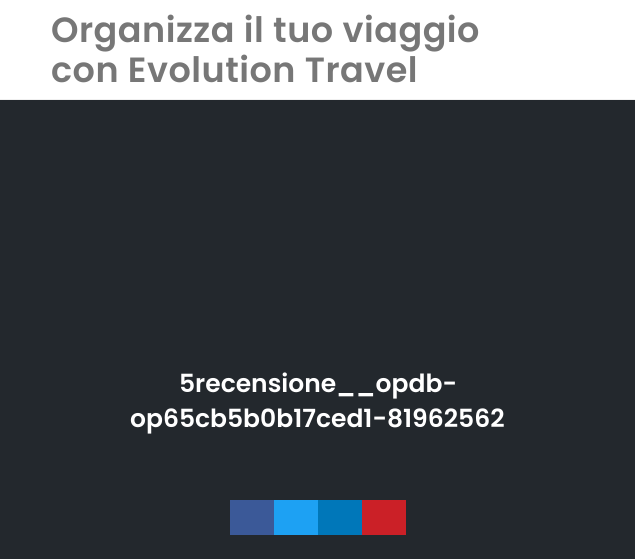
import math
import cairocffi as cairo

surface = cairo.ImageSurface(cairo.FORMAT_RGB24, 635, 559)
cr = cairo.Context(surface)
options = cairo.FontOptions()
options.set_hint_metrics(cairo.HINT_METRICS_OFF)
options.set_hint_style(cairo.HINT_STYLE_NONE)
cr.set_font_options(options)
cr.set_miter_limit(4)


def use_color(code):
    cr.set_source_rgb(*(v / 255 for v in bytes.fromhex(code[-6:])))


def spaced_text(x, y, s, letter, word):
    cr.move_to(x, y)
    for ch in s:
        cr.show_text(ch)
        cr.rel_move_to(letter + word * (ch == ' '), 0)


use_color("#ffffff")
cr.paint()
use_color("#f0f0f0")
cr.rectangle(0, 99, 635, 1)
cr.fill()
cr.select_font_face("Poppins SemiBold")
cr.set_font_size(35)
use_color("#777777")
spaced_text(51, 42, "Organizza il tuo viaggio", 0.5, 0)
spaced_text(51, 82, "con Evolution Travel", 0.5, 0)
use_color("#23282d")
cr.rectangle(0, 100, 635, 459)
cr.fill()
cr.set_font_size(25)
use_color("#ffffff")
cr.move_to(179, 392)
cr.show_text("5recensione__opdb-")
cr.move_to(130, 427)
cr.show_text("op65cb5b0b17ced1-81962562")
use_color("#3b5998")
cr.rectangle(230, 500, 44, 35)
cr.fill()
use_color("#1da1f3")
cr.rectangle(274, 500, 44, 35)
cr.fill()
use_color("#0077b9")
cr.rectangle(318, 500, 44, 35)
cr.fill()
use_color("#cb2027")
cr.rectangle(362, 500, 44, 35)
cr.fill()
surface.write_to_png("result.png")
